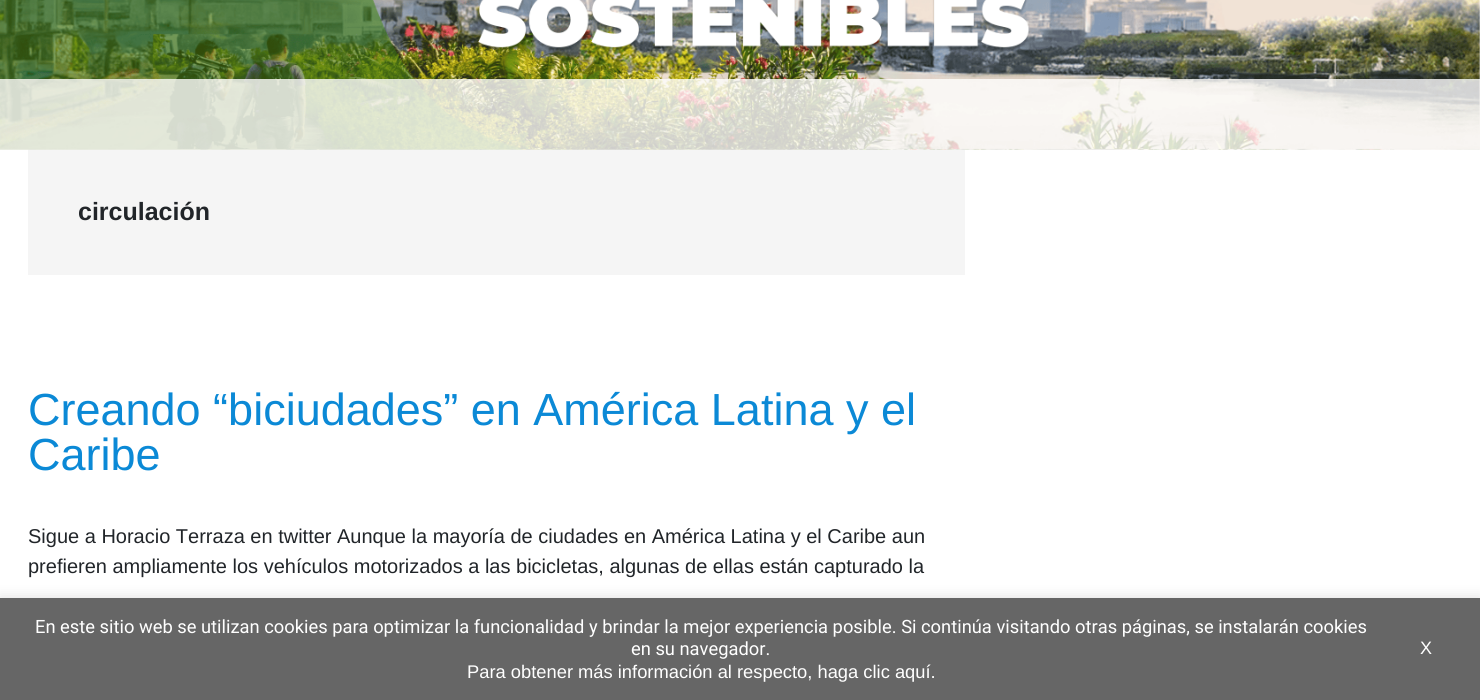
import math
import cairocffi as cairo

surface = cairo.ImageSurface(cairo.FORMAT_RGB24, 1480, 700)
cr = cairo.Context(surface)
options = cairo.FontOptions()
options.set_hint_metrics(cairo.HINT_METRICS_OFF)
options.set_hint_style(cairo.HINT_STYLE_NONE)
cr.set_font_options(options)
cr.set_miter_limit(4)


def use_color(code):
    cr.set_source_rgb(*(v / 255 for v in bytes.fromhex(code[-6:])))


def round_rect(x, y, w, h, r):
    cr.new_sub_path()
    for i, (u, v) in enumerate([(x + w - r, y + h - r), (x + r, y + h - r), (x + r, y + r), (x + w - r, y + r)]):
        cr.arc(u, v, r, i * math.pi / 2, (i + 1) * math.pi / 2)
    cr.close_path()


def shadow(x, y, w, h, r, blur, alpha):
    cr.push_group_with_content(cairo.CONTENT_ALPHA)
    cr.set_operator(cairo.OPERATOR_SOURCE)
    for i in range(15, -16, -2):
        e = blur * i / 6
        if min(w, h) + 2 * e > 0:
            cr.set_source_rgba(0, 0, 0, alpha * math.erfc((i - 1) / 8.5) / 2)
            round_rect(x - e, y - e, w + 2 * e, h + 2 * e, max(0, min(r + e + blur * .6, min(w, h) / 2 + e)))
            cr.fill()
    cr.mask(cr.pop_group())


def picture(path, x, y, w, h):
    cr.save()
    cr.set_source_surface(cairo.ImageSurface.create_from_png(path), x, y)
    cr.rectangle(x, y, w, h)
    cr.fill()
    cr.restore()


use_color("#ffffff")
cr.paint()
use_color("#f5f5f5")
cr.rectangle(28, 149, 937, 126)
cr.fill()
picture("img1.png", 0, 0, 1480, 150)
cr.select_font_face("Liberation Sans", cairo.FONT_SLANT_NORMAL, cairo.FONT_WEIGHT_BOLD)
cr.set_font_size(25)
use_color("#212529")
cr.move_to(78, 220)
cr.show_text("circulación")
cr.select_font_face("Liberation Sans")
cr.set_font_size(45)
use_color("#0b89d6")
cr.move_to(28, 425)
cr.show_text("Creando “biciudades” en América Latina y el")
cr.move_to(28, 470)
cr.show_text("Caribe")
cr.set_font_size(20)
use_color("#212529")
cr.move_to(28, 543)
cr.show_text("Sigue a Horacio Terraza en twitter Aunque la mayoría de ciudades en América Latina y el Caribe aun")
cr.move_to(28, 573)
cr.show_text("prefieren ampliamente los vehículos motorizados a las bicicletas, algunas de ellas están capturado la")
use_color("#acabab")
shadow(0, 596, 1480, 103, 0, 6, 0.3)
use_color("#666666")
cr.rectangle(0, 598, 1480, 102)
cr.fill()
cr.select_font_face("Roboto")
cr.set_font_size(18.33)
use_color("#ffffff")
cr.move_to(35, 633)
cr.show_text("En este sitio web se utilizan cookies para optimizar la funcionalidad y brindar la mejor experiencia posible. Si continúa visitando otras páginas, se instalarán cookies")
cr.move_to(631, 655)
cr.show_text("en su navegador.")
cr.select_font_face("Liberation Sans")
cr.move_to(467, 678)
cr.show_text("Para obtener más información al respecto, haga clic aquí.")
cr.set_font_size(18)
cr.move_to(1420, 654)
cr.show_text("X")
surface.write_to_png("result.png")
